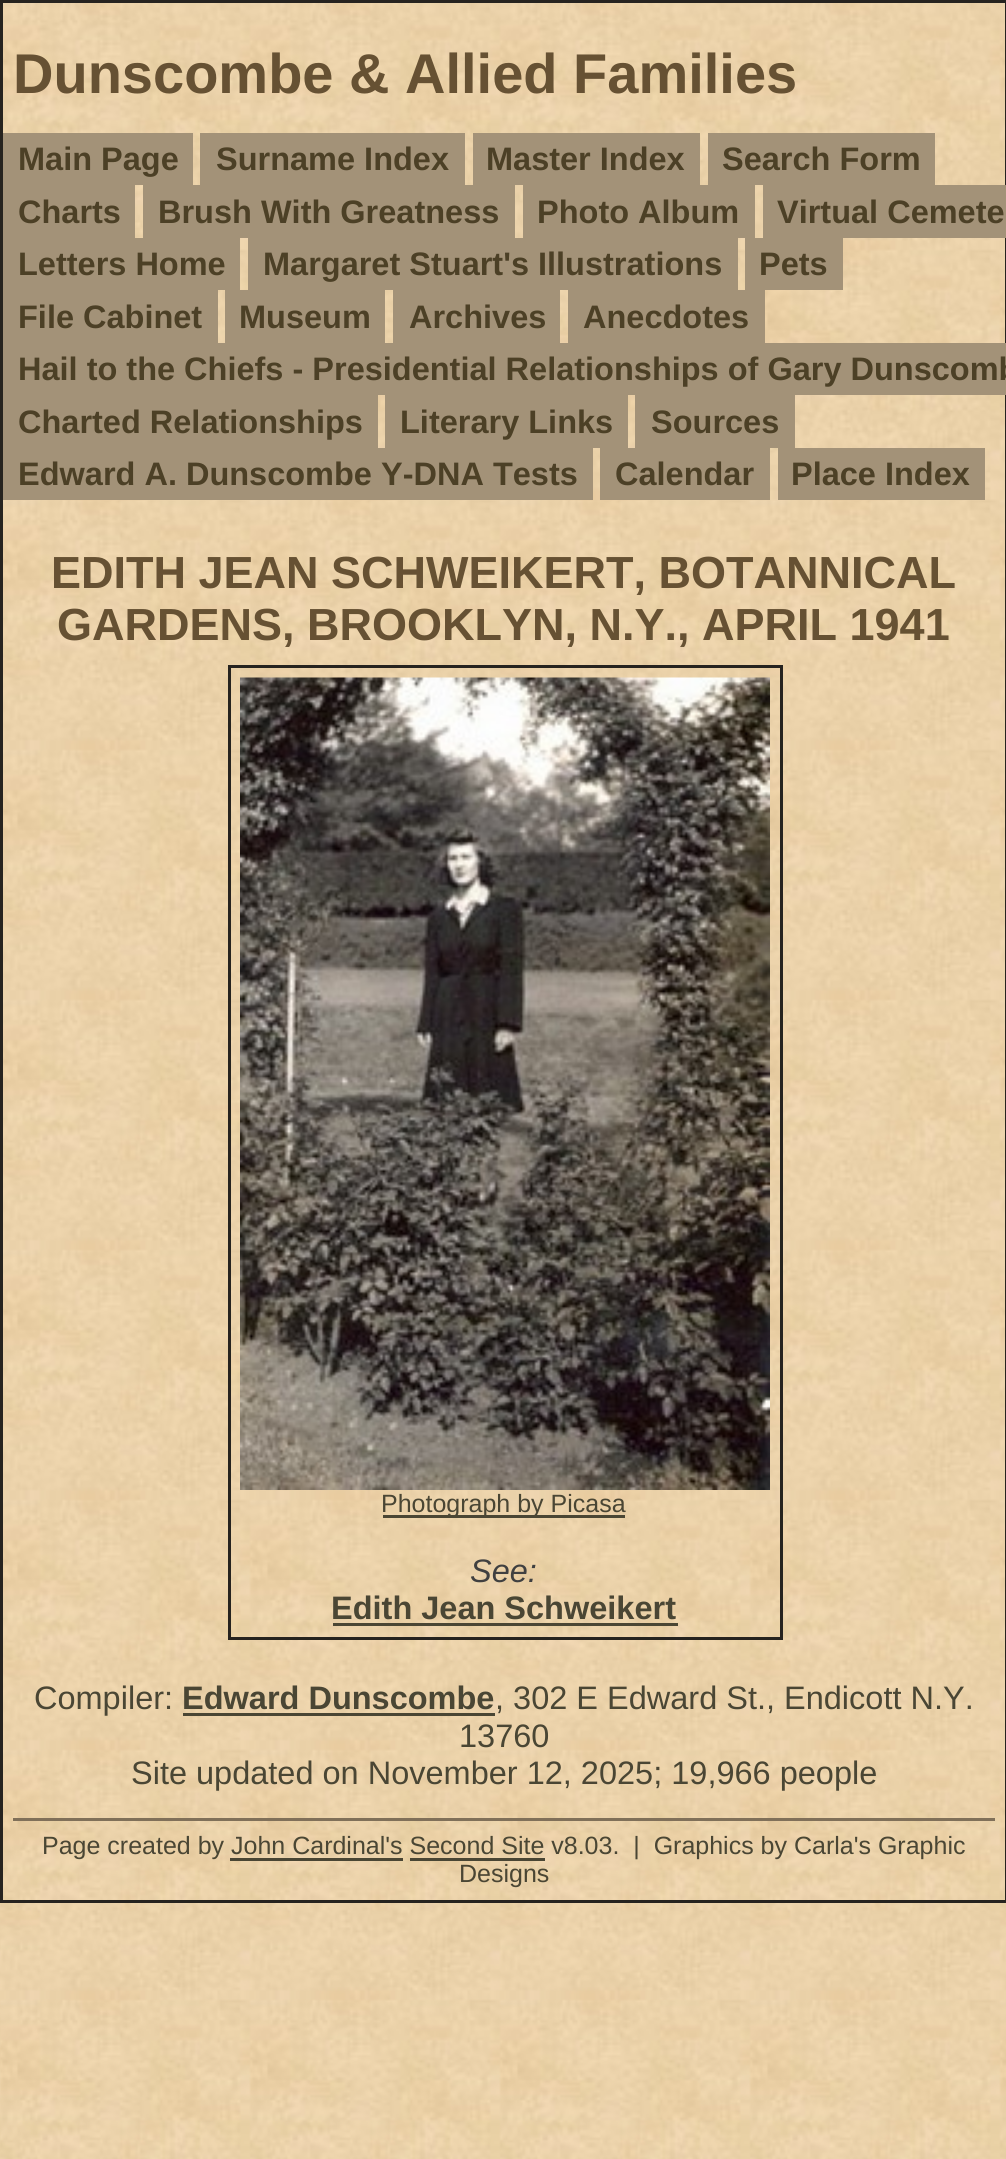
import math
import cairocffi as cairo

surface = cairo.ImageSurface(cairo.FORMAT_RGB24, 1006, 2159)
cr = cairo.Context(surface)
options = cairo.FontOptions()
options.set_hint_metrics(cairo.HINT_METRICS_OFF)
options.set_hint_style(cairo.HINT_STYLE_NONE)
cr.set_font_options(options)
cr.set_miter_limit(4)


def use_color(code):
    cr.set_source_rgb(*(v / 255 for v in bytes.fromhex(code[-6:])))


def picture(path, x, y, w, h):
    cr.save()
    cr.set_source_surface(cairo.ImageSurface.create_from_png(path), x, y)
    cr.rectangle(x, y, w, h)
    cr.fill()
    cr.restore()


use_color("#ffffff")
cr.paint()
picture("img1.png", 0, 3, 1006, 2156)
cr.rectangle(1.5, 1.5, 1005, 1900)
use_color("#26231f")
cr.set_line_width(3)
cr.stroke()
cr.select_font_face("Liberation Sans", cairo.FONT_SLANT_NORMAL, cairo.FONT_WEIGHT_BOLD)
cr.set_font_size(56)
use_color("#665133")
cr.move_to(13, 93)
cr.show_text("Dunscombe & Allied Families")
use_color("#a39278")
cr.rectangle(3, 133, 190, 52)
cr.fill()
cr.set_font_size(32.5)
use_color("#4c4026")
cr.move_to(18, 170)
cr.show_text("Main Page")
use_color("#a39278")
cr.rectangle(200, 133, 265, 52)
cr.fill()
use_color("#4c4026")
cr.move_to(216, 170)
cr.show_text("Surname Index")
use_color("#a39278")
cr.rectangle(473, 133, 227, 52)
cr.fill()
use_color("#4c4026")
cr.move_to(486, 170)
cr.show_text("Master Index")
use_color("#a39278")
cr.rectangle(708, 133, 227, 52)
cr.fill()
use_color("#4c4026")
cr.move_to(722, 170)
cr.show_text("Search Form")
use_color("#a39278")
cr.rectangle(3, 185, 132, 53)
cr.fill()
use_color("#4c4026")
cr.move_to(18, 223)
cr.show_text("Charts")
use_color("#a39278")
cr.rectangle(143, 185, 372, 53)
cr.fill()
use_color("#4c4026")
cr.move_to(158, 223)
cr.show_text("Brush With Greatness")
use_color("#a39278")
cr.rectangle(523, 185, 232, 53)
cr.fill()
use_color("#4c4026")
cr.move_to(537, 223)
cr.show_text("Photo Album")
use_color("#a39278")
cr.rectangle(763, 185, 243, 53)
cr.fill()
use_color("#4c4026")
cr.move_to(777, 223)
cr.show_text("Virtual Cemete")
use_color("#a39278")
cr.rectangle(3, 238, 237, 52)
cr.fill()
use_color("#4c4026")
cr.move_to(18, 275)
cr.show_text("Letters Home")
use_color("#a39278")
cr.rectangle(248, 238, 490, 52)
cr.fill()
use_color("#4c4026")
cr.move_to(263, 275)
cr.show_text("Margaret Stuart's Illustrations")
use_color("#a39278")
cr.rectangle(745, 238, 98, 52)
cr.fill()
use_color("#4c4026")
cr.move_to(759, 275)
cr.show_text("Pets")
use_color("#a39278")
cr.rectangle(3, 290, 215, 53)
cr.fill()
use_color("#4c4026")
cr.move_to(18, 328)
cr.show_text("File Cabinet")
use_color("#a39278")
cr.rectangle(225, 290, 160, 53)
cr.fill()
use_color("#4c4026")
cr.move_to(239, 328)
cr.show_text("Museum")
use_color("#a39278")
cr.rectangle(393, 290, 167, 53)
cr.fill()
use_color("#4c4026")
cr.move_to(409, 328)
cr.show_text("Archives")
use_color("#a39278")
cr.rectangle(568, 290, 197, 53)
cr.fill()
use_color("#4c4026")
cr.move_to(583, 328)
cr.show_text("Anecdotes")
use_color("#a39278")
cr.rectangle(3, 343, 1003, 52)
cr.fill()
use_color("#4c4026")
cr.move_to(18, 380)
cr.show_text("Hail to the Chiefs - Presidential Relationships of Gary Dunscomb")
use_color("#a39278")
cr.rectangle(3, 395, 375, 53)
cr.fill()
use_color("#4c4026")
cr.move_to(18, 433)
cr.show_text("Charted Relationships")
use_color("#a39278")
cr.rectangle(385, 395, 243, 53)
cr.fill()
use_color("#4c4026")
cr.move_to(400, 433)
cr.show_text("Literary Links")
use_color("#a39278")
cr.rectangle(635, 395, 160, 53)
cr.fill()
use_color("#4c4026")
cr.move_to(651, 433)
cr.show_text("Sources")
use_color("#a39278")
cr.rectangle(3, 448, 590, 52)
cr.fill()
use_color("#4c4026")
cr.move_to(18, 485)
cr.show_text("Edward A. Dunscombe Y-DNA Tests")
use_color("#a39278")
cr.rectangle(600, 448, 170, 52)
cr.fill()
use_color("#4c4026")
cr.move_to(615, 485)
cr.show_text("Calendar")
use_color("#a39278")
cr.rectangle(778, 448, 207, 52)
cr.fill()
use_color("#4c4026")
cr.move_to(791, 485)
cr.show_text("Place Index")
cr.set_font_size(45)
use_color("#665133")
cr.move_to(51, 588)
cr.show_text("EDITH JEAN SCHWEIKERT, BOTANNICAL")
cr.move_to(57, 640)
cr.show_text("GARDENS, BROOKLYN, N.Y., APRIL 1941")
cr.rectangle(229.5, 666.5, 552, 972)
use_color("#26231f")
cr.stroke()
picture("img2.png", 240, 677, 530, 813)
use_color("#4a4634")
cr.rectangle(383, 1515, 242, 3)
cr.fill()
cr.select_font_face("Liberation Sans")
cr.set_font_size(25)
cr.move_to(381, 1512)
cr.show_text("Photograph by Picasa")
cr.select_font_face("Liberation Sans", cairo.FONT_SLANT_ITALIC)
cr.set_font_size(32.5)
use_color("#404040")
cr.move_to(470, 1582)
cr.show_text("See:")
cr.select_font_face("Liberation Sans", cairo.FONT_SLANT_NORMAL, cairo.FONT_WEIGHT_BOLD)
use_color("#4a4634")
cr.move_to(331, 1619)
cr.show_text("Edith Jean Schweikert")
cr.rectangle(333, 1623, 345, 3)
cr.fill()
cr.select_font_face("Liberation Sans")
cr.move_to(34, 1709)
cr.show_text("Compiler:")
cr.select_font_face("Liberation Sans", cairo.FONT_SLANT_NORMAL, cairo.FONT_WEIGHT_BOLD)
cr.move_to(182, 1709)
cr.show_text("Edward Dunscombe")
cr.rectangle(183, 1713, 312, 3)
cr.fill()
cr.select_font_face("Liberation Sans")
cr.move_to(495, 1709)
cr.show_text(", 302 E Edward St., Endicott N.Y.")
cr.move_to(459, 1747)
cr.show_text("13760")
cr.move_to(131, 1784)
cr.show_text("Site updated on November 12, 2025; 19,966 people")
use_color("#807059")
cr.rectangle(13, 1818, 982, 3)
cr.fill()
cr.set_font_size(25)
use_color("#4a4634")
cr.move_to(42, 1854)
cr.show_text("Page created by John Cardinal's Second Site v8.03.  |  Graphics by Carla's Graphic")
cr.rectangle(230, 1858, 173, 3)
cr.fill()
cr.rectangle(410, 1858, 135, 3)
cr.fill()
cr.move_to(459, 1882)
cr.show_text("Designs")
surface.write_to_png("result.png")
